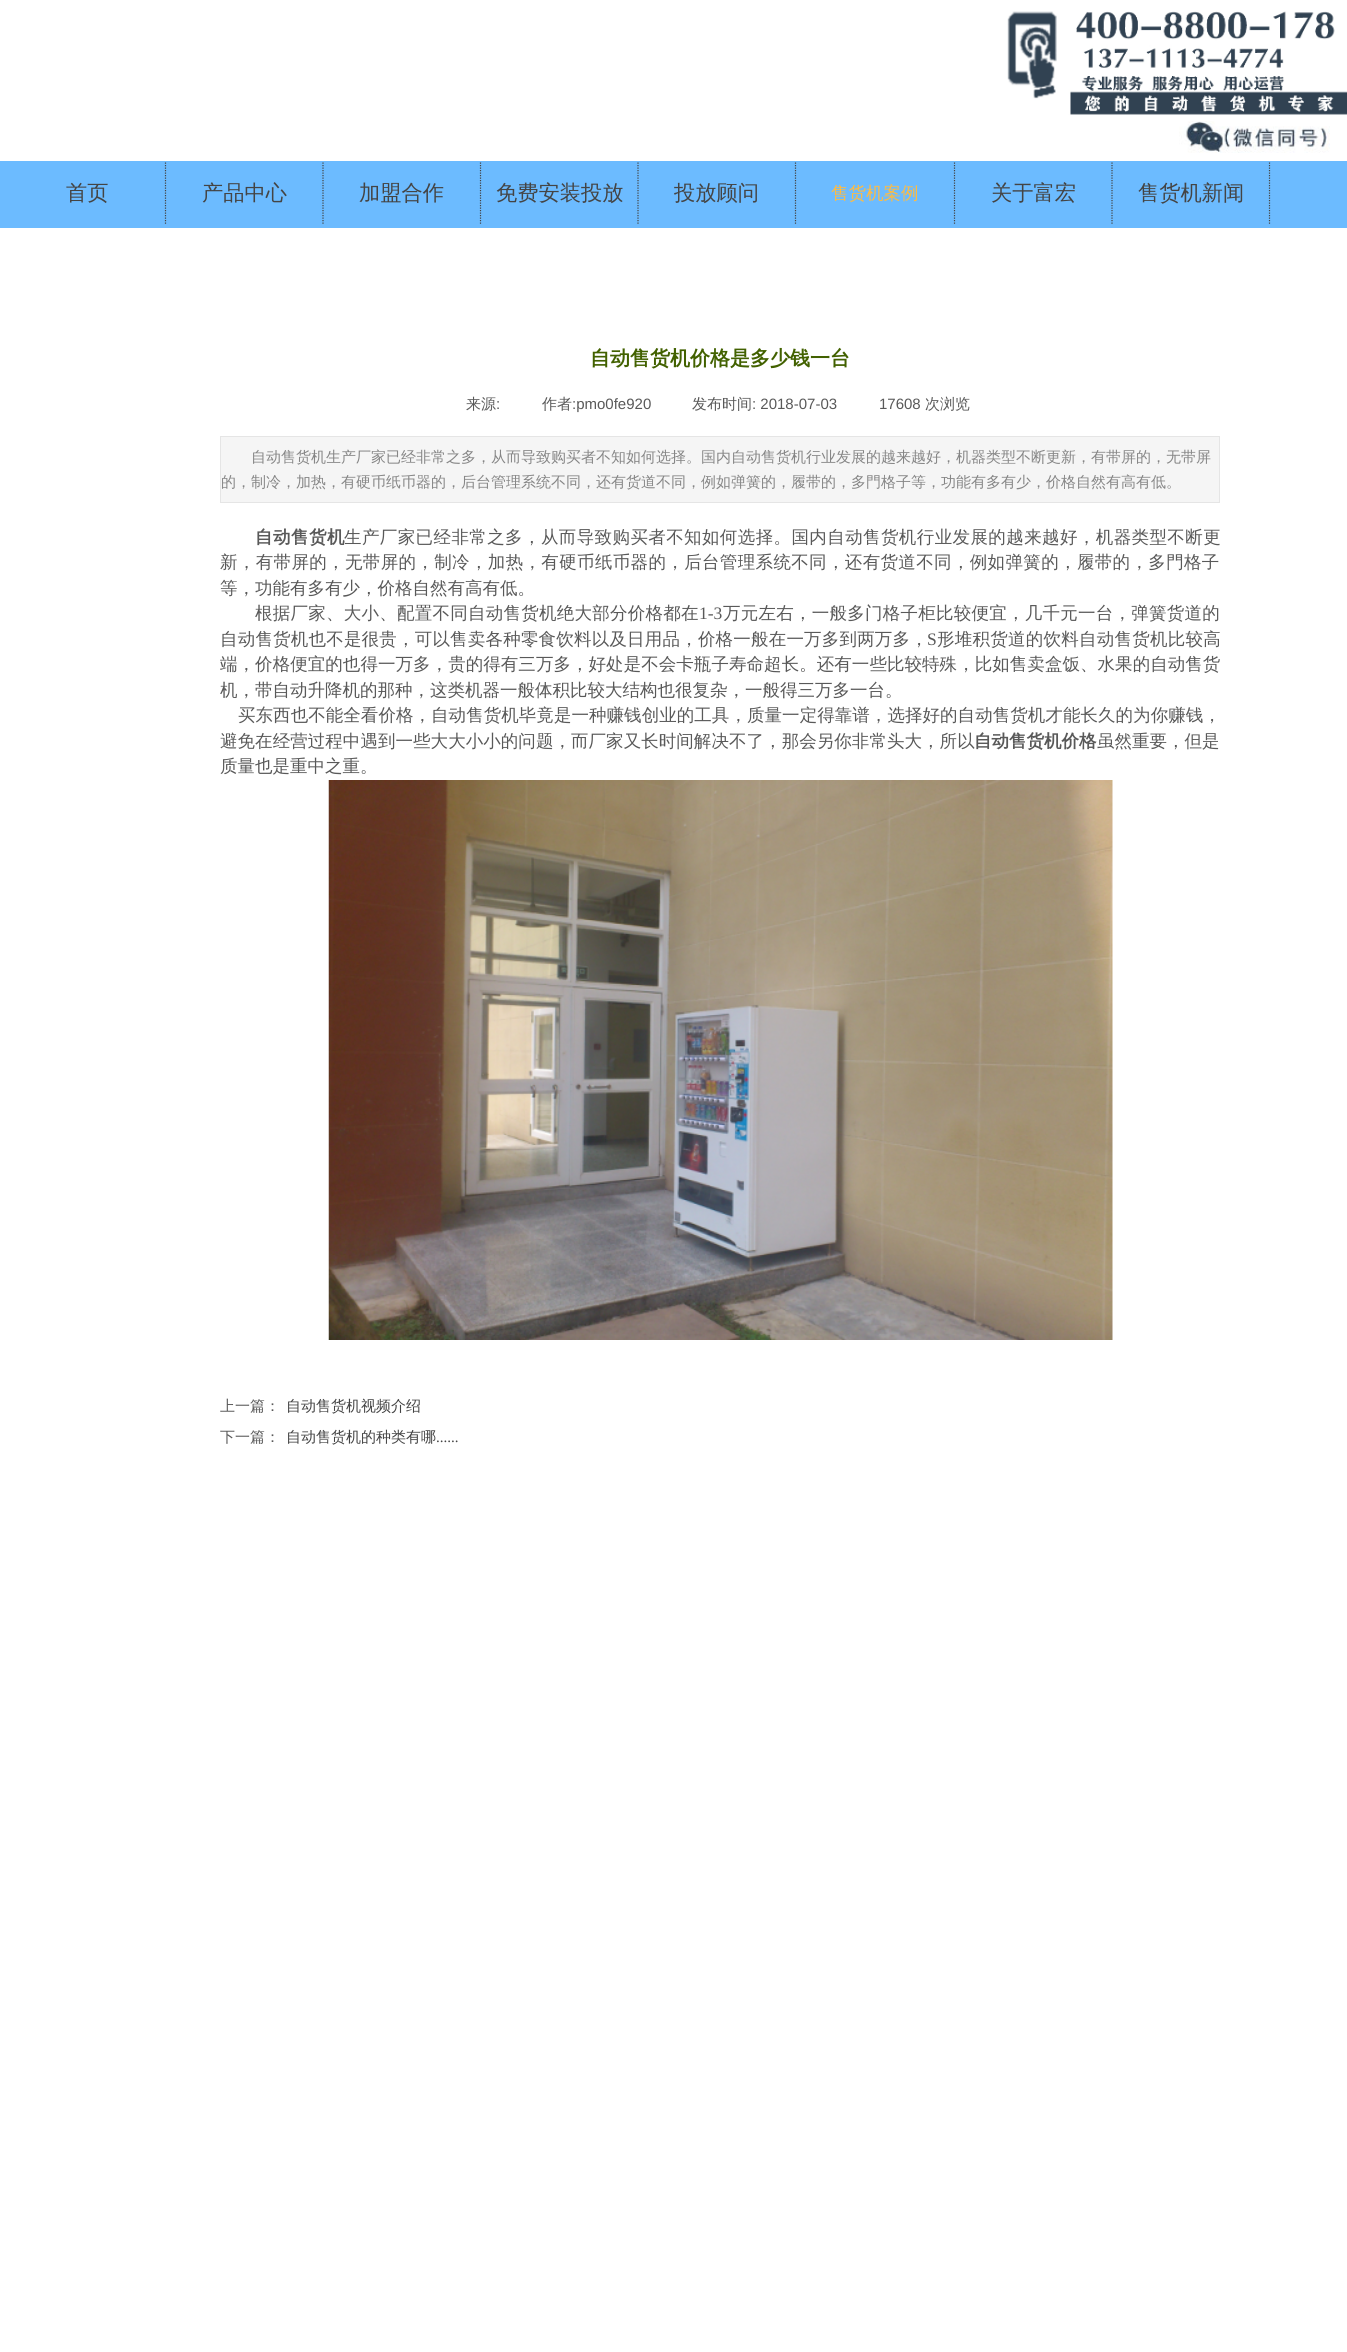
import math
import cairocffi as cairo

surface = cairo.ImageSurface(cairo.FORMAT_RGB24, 1347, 2352)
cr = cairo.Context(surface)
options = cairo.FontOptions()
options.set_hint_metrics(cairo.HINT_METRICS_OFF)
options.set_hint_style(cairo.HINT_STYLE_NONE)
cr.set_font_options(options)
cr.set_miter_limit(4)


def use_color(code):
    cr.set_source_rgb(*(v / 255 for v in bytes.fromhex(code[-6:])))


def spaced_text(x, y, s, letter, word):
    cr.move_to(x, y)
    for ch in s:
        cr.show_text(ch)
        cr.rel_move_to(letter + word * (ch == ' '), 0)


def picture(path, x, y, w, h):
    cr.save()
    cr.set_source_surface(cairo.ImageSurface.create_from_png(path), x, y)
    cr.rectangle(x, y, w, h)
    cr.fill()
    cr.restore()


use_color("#ffffff")
cr.paint()
picture("img1.png", 1007, 11, 340, 104)
picture("img2.png", 1179, 121, 151, 32)
use_color("#6cbbff")
cr.rectangle(0, 161, 1347, 67)
cr.fill()
cr.new_path()
cr.move_to(165.5, 162.5)
cr.line_to(165.5, 225)
use_color("#434343")
cr.set_line_width(1.2)
cr.set_dash([1.25, 1.25])
cr.stroke()
cr.select_font_face("WenQuanYi Zen Hei Medium")
cr.set_font_size(21.25)
use_color("#444444")
cr.move_to(66, 200)
cr.show_text("首页")
cr.new_path()
cr.move_to(323, 162.5)
cr.line_to(323, 225)
use_color("#434343")
cr.stroke()
use_color("#444444")
cr.move_to(202, 200)
cr.show_text("产品中心")
cr.new_path()
cr.move_to(480.5, 162.5)
cr.line_to(480.5, 225)
use_color("#434343")
cr.stroke()
use_color("#444444")
cr.move_to(359, 200)
cr.show_text("加盟合作")
cr.new_path()
cr.move_to(638, 162.5)
cr.line_to(638, 225)
use_color("#434343")
cr.stroke()
use_color("#444444")
cr.move_to(496, 200)
cr.show_text("免费安装投放")
cr.new_path()
cr.move_to(795.5, 162.5)
cr.line_to(795.5, 225)
use_color("#434343")
cr.stroke()
use_color("#444444")
cr.move_to(674, 200)
cr.show_text("投放顾问")
cr.new_path()
cr.move_to(954.5, 162.5)
cr.line_to(954.5, 225)
use_color("#434343")
cr.stroke()
cr.set_font_size(17.5)
use_color("#ffbb41")
cr.move_to(831, 199)
cr.show_text("售货机案例")
cr.new_path()
cr.move_to(1112, 162.5)
cr.line_to(1112, 225)
use_color("#434343")
cr.stroke()
cr.set_font_size(21.25)
use_color("#444444")
cr.move_to(991, 200)
cr.show_text("关于富宏")
cr.new_path()
cr.move_to(1269.5, 162.5)
cr.line_to(1269.5, 225)
use_color("#434343")
cr.stroke()
use_color("#444444")
cr.move_to(1138, 200)
cr.show_text("售货机新闻")
cr.select_font_face("WenQuanYi Zen Hei", cairo.FONT_SLANT_NORMAL, cairo.FONT_WEIGHT_BOLD)
cr.set_font_size(20)
use_color("#426100")
cr.move_to(590, 365)
cr.show_text("自动售货机价格是多少钱一台")
cr.select_font_face("WenQuanYi Zen Hei Medium")
cr.set_font_size(15)
use_color("#595959")
cr.move_to(466, 409)
cr.show_text("来源")
cr.select_font_face("Liberation Sans")
cr.move_to(496, 409)
cr.show_text(":")
cr.select_font_face("WenQuanYi Zen Hei Medium")
cr.move_to(542, 409)
cr.show_text("作者")
cr.select_font_face("Liberation Sans")
cr.move_to(572, 409)
cr.show_text(":pmo0fe920")
cr.select_font_face("WenQuanYi Zen Hei Medium")
cr.move_to(692, 409)
cr.show_text("发布时间")
cr.select_font_face("Liberation Sans")
cr.move_to(752, 409)
cr.show_text(": 2018-07-03")
cr.move_to(879, 409)
cr.show_text("17608")
cr.select_font_face("WenQuanYi Zen Hei Medium")
cr.move_to(925, 409)
cr.show_text("次浏览")
use_color("#f5f5f5")
cr.rectangle(220.5, 436.5, 999, 66)
cr.fill_preserve()
use_color("#e5e5e5")
cr.set_line_width(1)
cr.set_dash([])
cr.stroke()
use_color("#868686")
cr.move_to(251, 462)
cr.show_text("自动售货机生产厂家已经非常之多，从而导致购买者不知如何选择。国内自动售货机行业发展的越来越好，机器类型不断更新，有带屏的，无带屏")
cr.move_to(221, 487)
cr.show_text("的，制冷，加热，有硬币纸币器的，后台管理系统不同，还有货道不同，例如弹簧的，履带的，多門格子等，功能有多有少，价格自然有高有低。")
cr.select_font_face("WenQuanYi Zen Hei", cairo.FONT_SLANT_NORMAL, cairo.FONT_WEIGHT_BOLD)
cr.set_font_size(17.5)
use_color("#595959")
spaced_text(255, 543, "自动售货机", 0.5, 0)
cr.select_font_face("WenQuanYi Zen Hei Medium")
spaced_text(344, 543, "生产厂家已经非常之多，从而导致购买者不知如何选择。国内自动售货机行业发展的越来越好，机器类型不断更", 0.4, 0)
spaced_text(220, 568, "新，有带屏的，无带屏的，制冷，加热，有硬币纸币器的，后台管理系统不同，还有货道不同，例如弹簧的，履带的，多門格子", 0.35, 0)
cr.move_to(220, 594)
cr.show_text("等，功能有多有少，价格自然有高有低。")
spaced_text(255, 619, "根据厂家、大小、配置不同自动售货机绝大部分价格都在", 0.25, 0)
cr.select_font_face("Liberation Serif")
cr.move_to(699, 619)
cr.show_text("1-3")
cr.select_font_face("WenQuanYi Zen Hei Medium")
spaced_text(723, 619, "万元左右，一般多门格子柜比较便宜，几千元一台，弹簧货道的", 0.25, 0)
spaced_text(220, 645, "自动售货机也不是很贵，可以售卖各种零食饮料以及日用品，价格一般在一万多到两万多，", 0.2, 0)
cr.select_font_face("Liberation Serif")
cr.move_to(927, 645)
cr.show_text("S")
cr.select_font_face("WenQuanYi Zen Hei Medium")
spaced_text(937, 645, "形堆积货道的饮料自动售货机比较高", 0.25, 0)
spaced_text(220, 670, "端，价格便宜的也得一万多，贵的得有三万多，好处是不会卡瓶子寿命超长。还有一些比较特殊，比如售卖盒饭、水果的自动售货", 0.05, 0)
cr.move_to(220, 696)
cr.show_text("机，带自动升降机的那种，这类机器一般体积比较大结构也很复杂，一般得三万多一台。")
spaced_text(238, 721, "买东西也不能全看价格，自动售货机毕竟是一种赚钱创业的工具，质量一定得靠谱，选择好的自动售货机才能长久的为你赚钱，", 0.05, 0)
spaced_text(220, 747, "避免在经营过程中遇到一些大大小小的问题，而厂家又长时间解决不了，那会另你非常头大，所以", 0.05, 0)
cr.select_font_face("WenQuanYi Zen Hei", cairo.FONT_SLANT_NORMAL, cairo.FONT_WEIGHT_BOLD)
cr.move_to(974, 747)
cr.show_text("自动售货机价格")
cr.select_font_face("WenQuanYi Zen Hei Medium")
cr.move_to(1097, 747)
cr.show_text("虽然重要，但是")
cr.move_to(220, 772)
cr.show_text("质量也是重中之重。")
picture("img3.png", 328, 780, 785, 560)
cr.set_font_size(15)
cr.move_to(220, 1411)
cr.show_text("上一篇：")
use_color("#444444")
cr.move_to(286, 1411)
cr.show_text("自动售货机视频介绍")
use_color("#595959")
cr.move_to(220, 1442)
cr.show_text("下一篇：")
use_color("#444444")
cr.move_to(286, 1442)
cr.show_text("自动售货机的种类有哪")
cr.select_font_face("Liberation Serif")
cr.move_to(436, 1442)
cr.show_text("......")
surface.write_to_png("result.png")
